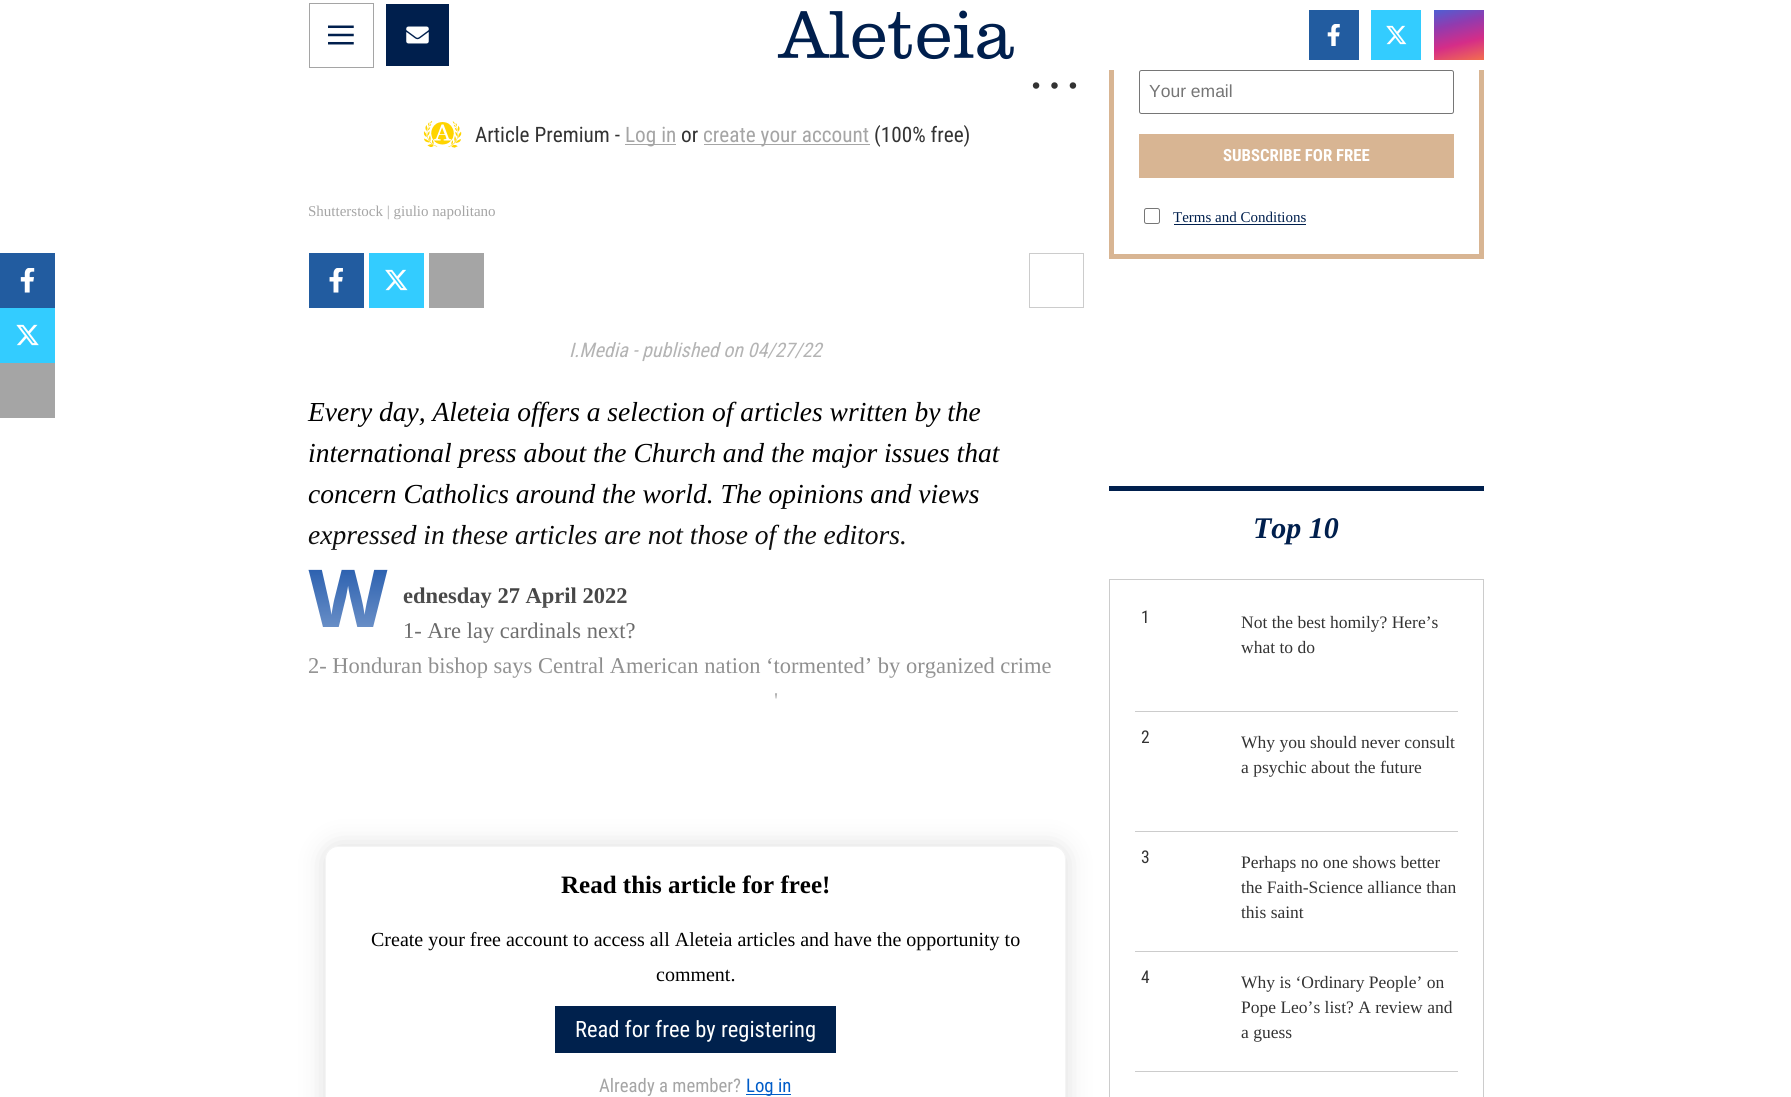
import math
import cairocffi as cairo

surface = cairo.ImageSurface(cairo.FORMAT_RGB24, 1791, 1097)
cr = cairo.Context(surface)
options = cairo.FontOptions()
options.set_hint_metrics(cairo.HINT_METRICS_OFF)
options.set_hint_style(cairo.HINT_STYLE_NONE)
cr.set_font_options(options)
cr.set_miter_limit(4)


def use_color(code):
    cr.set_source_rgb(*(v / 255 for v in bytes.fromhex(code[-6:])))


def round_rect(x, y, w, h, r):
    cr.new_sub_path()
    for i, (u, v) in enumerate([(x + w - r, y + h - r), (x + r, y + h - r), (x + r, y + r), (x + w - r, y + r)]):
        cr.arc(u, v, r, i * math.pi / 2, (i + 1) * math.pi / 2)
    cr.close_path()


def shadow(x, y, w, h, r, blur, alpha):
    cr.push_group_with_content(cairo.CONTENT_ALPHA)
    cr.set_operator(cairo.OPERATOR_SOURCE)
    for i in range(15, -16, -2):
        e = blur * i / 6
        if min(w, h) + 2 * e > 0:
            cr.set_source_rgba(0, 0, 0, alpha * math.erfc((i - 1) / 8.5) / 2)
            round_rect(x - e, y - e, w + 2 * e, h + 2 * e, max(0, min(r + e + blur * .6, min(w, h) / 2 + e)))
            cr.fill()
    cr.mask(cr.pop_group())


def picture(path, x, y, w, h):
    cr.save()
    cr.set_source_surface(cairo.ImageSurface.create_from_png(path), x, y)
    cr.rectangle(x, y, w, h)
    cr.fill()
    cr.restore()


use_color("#ffffff")
cr.paint()
cr.rectangle(1111.5, -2.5, 370, 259)
use_color("#d8b593")
cr.set_line_width(5)
cr.stroke()
use_color("#ffffff")
cr.rectangle(1109, 0, 375, 70)
cr.fill()
cr.rectangle(309.5, 3.5, 64, 64)
use_color("#a5a5a5")
cr.set_line_width(1)
cr.stroke()
picture("img1.png", 328, 25, 26, 20)
use_color("#001f4d")
cr.rectangle(386, 4, 63, 62)
cr.fill()
picture("img2.png", 406, 26, 23, 18)
picture("img3.png", 777, 10, 237, 50)
use_color("#225ca0")
cr.rectangle(1309, 10, 50, 50)
cr.fill()
picture("img4.png", 1327, 24, 13, 22)
use_color("#33ccff")
cr.rectangle(1371, 10, 50, 50)
cr.fill()
picture("img5.png", 1386, 25, 21, 20)
gradient = cairo.LinearGradient(1451, 5.6, 1466, 64)
gradient.add_color_stop_rgba(0, 0.306, 0.373, 0.827, 1)
gradient.add_color_stop_rgba(0.31, 0.569, 0.231, 0.686, 1)
gradient.add_color_stop_rgba(0.65, 0.835, 0.176, 0.533, 1)
gradient.add_color_stop_rgba(1, 0.949, 0.427, 0.31, 1)
cr.set_source(gradient)
cr.rectangle(1434, 10, 50, 50)
cr.fill()
cr.select_font_face("Liberation Serif")
cr.set_font_size(55)
use_color("#333333")
cr.move_to(1027, 88)
cr.show_text("…")
picture("img6.png", 423, 121, 39, 27)
cr.select_font_face("Roboto Condensed")
cr.set_font_size(21.25)
cr.move_to(475, 142)
cr.show_text("Article Premium -")
use_color("#a5a5a5")
cr.rectangle(625, 144, 51, 1)
cr.fill()
cr.move_to(625, 142)
cr.show_text("Log in")
use_color("#333333")
cr.move_to(681, 142)
cr.show_text("or")
use_color("#a5a5a5")
cr.rectangle(704, 144, 166, 1)
cr.fill()
cr.move_to(703, 142)
cr.show_text("create your account")
use_color("#333333")
cr.move_to(874, 142)
cr.show_text("(100% free)")
cr.select_font_face("Liberation Serif")
cr.set_font_size(15)
use_color("#a5a5a5")
cr.move_to(308, 216)
cr.show_text("Shutterstock | giulio napolitano")
use_color("#225ca0")
cr.rectangle(0, 253, 55, 55)
cr.fill()
picture("img7.png", 20, 268, 15, 25)
use_color("#33ccff")
cr.rectangle(0, 308, 55, 55)
cr.fill()
picture("img8.png", 16, 324, 23, 22)
use_color("#a5a5a5")
cr.rectangle(0, 363, 55, 55)
cr.fill()
use_color("#225ca0")
cr.rectangle(309, 253, 55, 55)
cr.fill()
picture("img9.png", 329, 268, 14, 25)
use_color("#33ccff")
cr.rectangle(369, 253, 55, 55)
cr.fill()
picture("img10.png", 385, 269, 23, 22)
use_color("#a5a5a5")
cr.rectangle(429, 253, 55, 55)
cr.fill()
cr.rectangle(1029.5, 253.5, 54, 54)
use_color("#cccccc")
cr.stroke()
cr.select_font_face("Roboto Condensed", cairo.FONT_SLANT_ITALIC)
cr.set_font_size(20)
use_color("#b4b4b4")
cr.move_to(569, 357)
cr.show_text("I.Media - published on 04/27/22")
cr.select_font_face("Liberation Serif", cairo.FONT_SLANT_ITALIC)
cr.set_font_size(27.5)
use_color("#000000")
cr.move_to(308, 421)
cr.show_text("Every day, Aleteia offers a selection of articles written by the")
cr.move_to(308, 462)
cr.show_text("international press about the Church and the major issues that")
cr.move_to(308, 503)
cr.show_text("concern Catholics around the world. The opinions and views")
cr.move_to(308, 544)
cr.show_text("expressed in these articles are not those of the editors.")
cr.select_font_face("Noto Sans ExtraBold")
cr.set_font_size(80)
use_color("#00409f")
cr.move_to(308, 627)
cr.show_text("W")
cr.select_font_face("Liberation Serif", cairo.FONT_SLANT_NORMAL, cairo.FONT_WEIGHT_BOLD)
cr.set_font_size(22.5)
use_color("#000000")
cr.move_to(403, 603)
cr.show_text("ednesday 27 April 2022")
cr.select_font_face("Liberation Serif")
cr.move_to(403, 638)
cr.show_text("1- Are lay cardinals next?")
cr.move_to(308, 673)
cr.show_text("2- Honduran bishop says Central American nation ‘tormented’ by organized crime")
cr.move_to(774, 708)
cr.show_text("'")
gradient = cairo.LinearGradient(696, 525, 696, 1025)
gradient.add_color_stop_rgba(0, 1, 1, 1, 0)
gradient.add_color_stop_rgba(0.5, 1, 1, 1, 1)
cr.set_source(gradient)
cr.rectangle(309, 530, 742, 169)
cr.fill()
use_color("#dddddd")
shadow(325, 846, 741, 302, 13, 12.5, 1)
use_color("#ffffff")
round_rect(325.5, 846.5, 740, 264, 12.5)
cr.fill_preserve()
use_color("#f4f4f4")
cr.stroke()
cr.select_font_face("Liberation Serif", cairo.FONT_SLANT_NORMAL, cairo.FONT_WEIGHT_BOLD)
cr.set_font_size(25)
use_color("#000000")
cr.move_to(561, 893)
cr.show_text("Read this article for free!")
cr.select_font_face("Liberation Serif")
cr.set_font_size(20)
cr.move_to(371, 946)
cr.show_text("Create your free account to access all Aleteia articles and have the opportunity to")
cr.move_to(656, 981)
cr.show_text("comment.")
use_color("#00214d")
cr.rectangle(555, 1006, 281, 47)
cr.fill()
cr.select_font_face("Roboto Condensed")
cr.set_font_size(22.5)
use_color("#ffffff")
cr.move_to(575, 1037)
cr.show_text("Read for free by registering")
cr.set_font_size(18.75)
use_color("#a5a5a5")
cr.move_to(599, 1092)
cr.show_text("Already a member?")
use_color("#005cc8")
cr.rectangle(746, 1094, 45, 1)
cr.fill()
cr.move_to(746, 1092)
cr.show_text("Log in")
round_rect(1139.5, 70.5, 314, 43, 2)
use_color("#767676")
cr.stroke()
cr.select_font_face("Liberation Sans")
cr.set_font_size(17.5)
use_color("#757575")
cr.move_to(1149, 97)
cr.show_text("Your email")
use_color("#d8b593")
cr.rectangle(1139, 134, 315, 44)
cr.fill()
cr.select_font_face("Roboto Condensed", cairo.FONT_SLANT_NORMAL, cairo.FONT_WEIGHT_BOLD)
cr.set_font_size(16.75)
use_color("#ffffff")
cr.move_to(1223, 161)
cr.show_text("SUBSCRIBE FOR FREE")
round_rect(1144.5, 208.5, 15, 15, 2)
use_color("#767676")
cr.stroke()
cr.select_font_face("Liberation Serif")
cr.set_font_size(15)
use_color("#001f4d")
cr.move_to(1173, 222)
cr.show_text("Terms and Conditions")
cr.rectangle(1174, 224, 132, 1)
cr.fill()
cr.rectangle(1109, 486, 375, 5)
cr.fill()
cr.select_font_face("Liberation Serif", cairo.FONT_SLANT_ITALIC, cairo.FONT_WEIGHT_BOLD)
cr.set_font_size(30)
cr.move_to(1253, 538)
cr.show_text("Top 10")
cr.rectangle(1109.5, 579.5, 374, 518)
use_color("#cccccc")
cr.stroke()
cr.rectangle(1135, 711, 323, 1)
cr.fill()
cr.select_font_face("Roboto Condensed")
cr.set_font_size(17.5)
use_color("#333333")
cr.move_to(1141, 623)
cr.show_text("1")
cr.select_font_face("Liberation Serif")
cr.move_to(1241, 628)
cr.show_text("Not the best homily? Here’s")
cr.move_to(1241, 653)
cr.show_text("what to do")
use_color("#cccccc")
cr.rectangle(1135, 831, 323, 1)
cr.fill()
cr.select_font_face("Roboto Condensed")
use_color("#333333")
cr.move_to(1141, 743)
cr.show_text("2")
cr.select_font_face("Liberation Serif")
cr.move_to(1241, 748)
cr.show_text("Why you should never consult")
cr.move_to(1241, 773)
cr.show_text("a psychic about the future")
use_color("#cccccc")
cr.rectangle(1135, 951, 323, 1)
cr.fill()
cr.select_font_face("Roboto Condensed")
use_color("#333333")
cr.move_to(1141, 863)
cr.show_text("3")
cr.select_font_face("Liberation Serif")
cr.move_to(1241, 868)
cr.show_text("Perhaps no one shows better")
cr.move_to(1241, 893)
cr.show_text("the Faith-Science alliance than")
cr.move_to(1241, 918)
cr.show_text("this saint")
use_color("#cccccc")
cr.rectangle(1135, 1071, 323, 1)
cr.fill()
cr.select_font_face("Roboto Condensed")
use_color("#333333")
cr.move_to(1141, 983)
cr.show_text("4")
cr.select_font_face("Liberation Serif")
cr.move_to(1241, 988)
cr.show_text("Why is ‘Ordinary People’ on")
cr.move_to(1241, 1013)
cr.show_text("Pope Leo’s list? A review and")
cr.move_to(1241, 1038)
cr.show_text("a guess")
surface.write_to_png("result.png")
